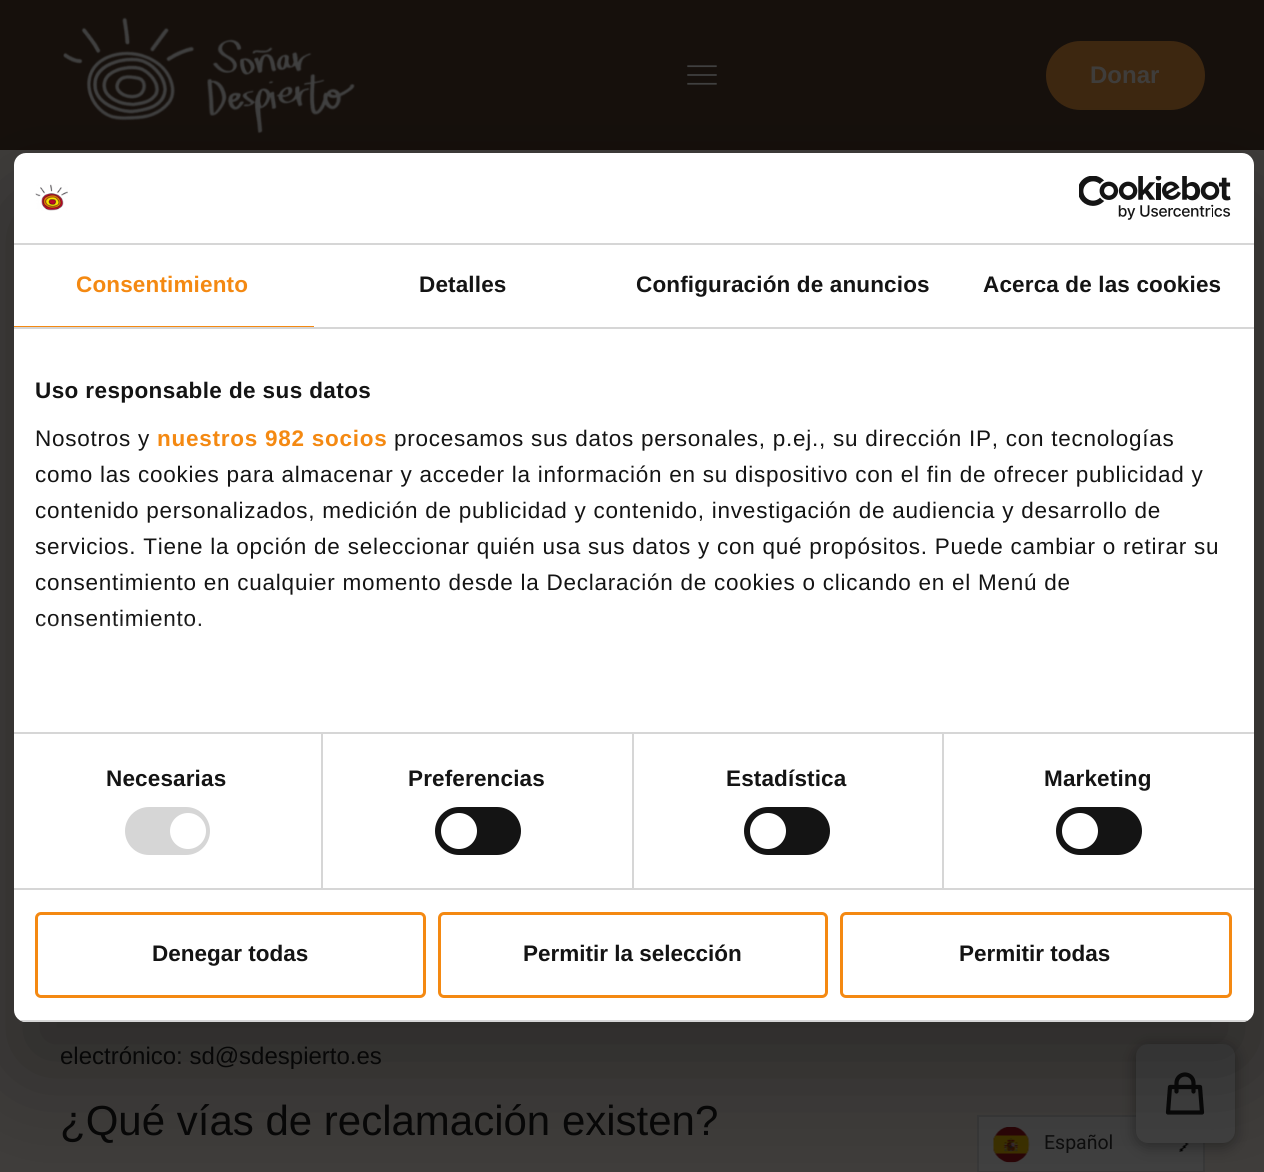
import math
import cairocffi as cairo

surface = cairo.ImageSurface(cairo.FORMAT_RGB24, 1264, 1172)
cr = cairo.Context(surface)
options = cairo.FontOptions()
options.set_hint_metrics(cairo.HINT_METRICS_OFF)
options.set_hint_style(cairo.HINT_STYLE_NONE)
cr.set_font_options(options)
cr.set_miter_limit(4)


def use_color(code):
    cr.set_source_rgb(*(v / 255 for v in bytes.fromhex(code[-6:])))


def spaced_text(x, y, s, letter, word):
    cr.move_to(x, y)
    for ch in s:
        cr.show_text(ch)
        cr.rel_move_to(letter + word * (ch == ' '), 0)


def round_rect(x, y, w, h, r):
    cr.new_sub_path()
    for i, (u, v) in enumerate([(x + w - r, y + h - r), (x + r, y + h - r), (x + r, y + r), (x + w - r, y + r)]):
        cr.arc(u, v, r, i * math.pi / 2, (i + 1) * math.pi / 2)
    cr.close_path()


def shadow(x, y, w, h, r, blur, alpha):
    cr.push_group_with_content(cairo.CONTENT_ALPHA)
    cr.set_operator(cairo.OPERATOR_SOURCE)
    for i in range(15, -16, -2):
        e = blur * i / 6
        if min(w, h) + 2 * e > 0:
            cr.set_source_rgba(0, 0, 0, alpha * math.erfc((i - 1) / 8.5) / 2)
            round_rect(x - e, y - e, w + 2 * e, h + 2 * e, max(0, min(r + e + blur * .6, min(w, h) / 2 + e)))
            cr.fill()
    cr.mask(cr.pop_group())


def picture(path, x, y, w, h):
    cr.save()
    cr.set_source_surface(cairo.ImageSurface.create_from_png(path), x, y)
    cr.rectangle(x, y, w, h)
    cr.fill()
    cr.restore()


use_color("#3f3d3b")
cr.paint()
cr.set_source_rgba(0.051, 0.027, 0.008, 0.81)
cr.rectangle(0, 0, 1264, 150)
cr.fill()
picture("img1.png", 63, 17, 292, 117)
picture("img2.png", 687, 65, 30, 20)
use_color("#3d2710")
round_rect(1046, 41, 159, 69, 34.5)
cr.fill()
cr.select_font_face("Liberation Sans", cairo.FONT_SLANT_NORMAL, cairo.FONT_WEIGHT_BOLD)
cr.set_font_size(24)
use_color("#3f3d3b")
cr.move_to(1090, 83)
cr.show_text("Donar")
use_color("#404040")
cr.rectangle(978, 1116, 226, 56)
cr.fill_preserve()
use_color("#383838")
cr.stroke()
picture("img5.png", 993, 1127, 37, 36)
picture("img6.png", 1179, 1143, 10, 9)
use_color("#000000")
shadow(1136, 1047, 99, 99, 12, 7.5, 0.37)
use_color("#404040")
round_rect(1136, 1044, 99, 99, 12)
cr.fill()
cr.new_path()
cr.move_to(1193.5, 1091.5)
cr.line_to(1193.5, 1083)
cr.curve_to(1193.5, 1078, 1189.5, 1074.5, 1185, 1074.5)
cr.curve_to(1180.5, 1074.5, 1176.5, 1078, 1176.5, 1083)
cr.line_to(1176.5, 1091.5)
cr.move_to(1170, 1087)
cr.line_to(1200, 1087)
cr.line_to(1202, 1112.5)
cr.line_to(1168, 1112.5)
cr.close_path()
use_color("#090909")
cr.set_line_width(4.2)
cr.set_line_cap(cairo.LINE_CAP_ROUND)
cr.set_line_join(cairo.LINE_JOIN_ROUND)
cr.stroke()
use_color("#000000")
shadow(14, 201, 1240, 869, 12, 51, 0.3)
use_color("#ffffff")
round_rect(14, 153, 1240, 869, 12)
cr.fill()
use_color("#d6d6d6")
cr.rectangle(14, 243, 1240, 2)
cr.fill()
picture("img3.png", 35, 184, 33, 27)
picture("img4.png", 1079, 176, 152, 44)
cr.rectangle(14, 327, 1240, 2)
cr.fill()
use_color("#f48912")
cr.rectangle(14, 326, 300, 1)
cr.fill()
cr.set_font_size(22.5)
spaced_text(76, 292, "Consentimiento", 0.15, 0)
use_color("#141414")
spaced_text(419, 292, "Detalles", 0.15, 0)
spaced_text(636, 292, "Configuración de anuncios", 0.15, 0)
spaced_text(983, 292, "Acerca de las cookies", 0.15, 0)
use_color("#d6d6d6")
cr.rectangle(14, 732, 1240, 2)
cr.fill()
use_color("#141414")
spaced_text(35, 398, "Uso responsable de sus datos", 0.4, 0)
cr.select_font_face("Liberation Sans")
spaced_text(35, 446, "Nosotros y", 0.75, 0)
cr.select_font_face("Liberation Sans", cairo.FONT_SLANT_NORMAL, cairo.FONT_WEIGHT_BOLD)
use_color("#f48912")
spaced_text(157, 446, "nuestros 982 socios", 0.75, 0)
cr.select_font_face("Liberation Sans")
use_color("#141414")
spaced_text(394, 446, "procesamos sus datos personales, p.ej., su dirección IP, con tecnologías", 0.75, 0)
spaced_text(35, 482, "como las cookies para almacenar y acceder la información en su dispositivo con el fin de ofrecer publicidad y", 0.75, 0)
spaced_text(35, 518, "contenido personalizados, medición de publicidad y contenido, investigación de audiencia y desarrollo de", 0.75, 0)
spaced_text(35, 554, "servicios. Tiene la opción de seleccionar quién usa sus datos y con qué propósitos. Puede cambiar o retirar su", 0.75, 0)
spaced_text(35, 590, "consentimiento en cualquier momento desde la Declaración de cookies o clicando en el Menú de", 0.75, 0)
spaced_text(35, 626, "consentimiento.", 0.75, 0)
gradient = cairo.LinearGradient(623, 731, 623, 619)
gradient.add_color_stop_rgba(0, 1, 1, 1, 1)
gradient.add_color_stop_rgba(0.5, 1, 1, 1, 0.8)
gradient.add_color_stop_rgba(1, 1, 1, 1, 0)
cr.set_source(gradient)
cr.rectangle(35, 621, 166, 6)
cr.fill()
use_color("#d6d6d6")
cr.rectangle(14, 888, 1240, 2)
cr.fill()
cr.rectangle(321, 734, 2, 154)
cr.fill()
cr.select_font_face("Liberation Sans", cairo.FONT_SLANT_NORMAL, cairo.FONT_WEIGHT_BOLD)
use_color("#141414")
spaced_text(106, 786, "Necesarias", 0.15, 0)
use_color("#d6d6d6")
round_rect(125, 807, 85, 48, 24)
cr.fill()
use_color("#ffffff")
cr.arc(188, 831, 18, 0, 2 * math.pi)
cr.fill()
use_color("#d6d6d6")
cr.rectangle(632, 734, 2, 154)
cr.fill()
use_color("#141414")
spaced_text(408, 786, "Preferencias", 0.15, 0)
round_rect(435, 807, 86, 48, 24)
cr.fill()
use_color("#ffffff")
cr.arc(459, 831, 18, 0, 2 * math.pi)
cr.fill()
use_color("#d6d6d6")
cr.rectangle(942, 734, 2, 154)
cr.fill()
use_color("#141414")
spaced_text(726, 786, "Estadística", 0.15, 0)
round_rect(744, 807, 86, 48, 24)
cr.fill()
use_color("#ffffff")
cr.arc(768, 831, 18, 0, 2 * math.pi)
cr.fill()
use_color("#141414")
spaced_text(1044, 786, "Marketing", 0.15, 0)
round_rect(1056, 807, 86, 48, 24)
cr.fill()
use_color("#ffffff")
cr.arc(1080, 831, 18, 0, 2 * math.pi)
cr.fill()
cr.save()
round_rect(14, 153, 1240, 869, 12)
cr.clip()
use_color("#d6d6d6")
cr.rectangle(14, 1020, 1240, 2)
cr.fill()
cr.restore()
round_rect(36.5, 913.5, 388, 83, 4.5)
use_color("#f48912")
cr.set_line_width(3)
cr.set_line_cap(cairo.LINE_CAP_BUTT)
cr.set_line_join(cairo.LINE_JOIN_MITER)
cr.stroke()
use_color("#141414")
cr.move_to(152, 961)
cr.show_text("Denegar todas")
round_rect(439.5, 913.5, 387, 83, 4.5)
use_color("#f48912")
cr.stroke()
use_color("#141414")
cr.move_to(523, 961)
cr.show_text("Permitir la selección")
round_rect(841.5, 913.5, 389, 83, 4.5)
use_color("#f48912")
cr.stroke()
use_color("#141414")
cr.move_to(959, 961)
cr.show_text("Permitir todas")
cr.select_font_face("Liberation Sans")
cr.set_font_size(24)
use_color("#070707")
cr.move_to(60, 1064)
cr.show_text("electrónico: sd@sdespierto.es")
cr.set_font_size(42)
cr.move_to(60, 1135)
cr.show_text("¿Qué vías de reclamación existen?")
cr.select_font_face("Roboto")
cr.set_font_size(19.5)
use_color("#0d0d0d")
cr.move_to(1044, 1149)
cr.show_text("Español")
surface.write_to_png("result.png")
